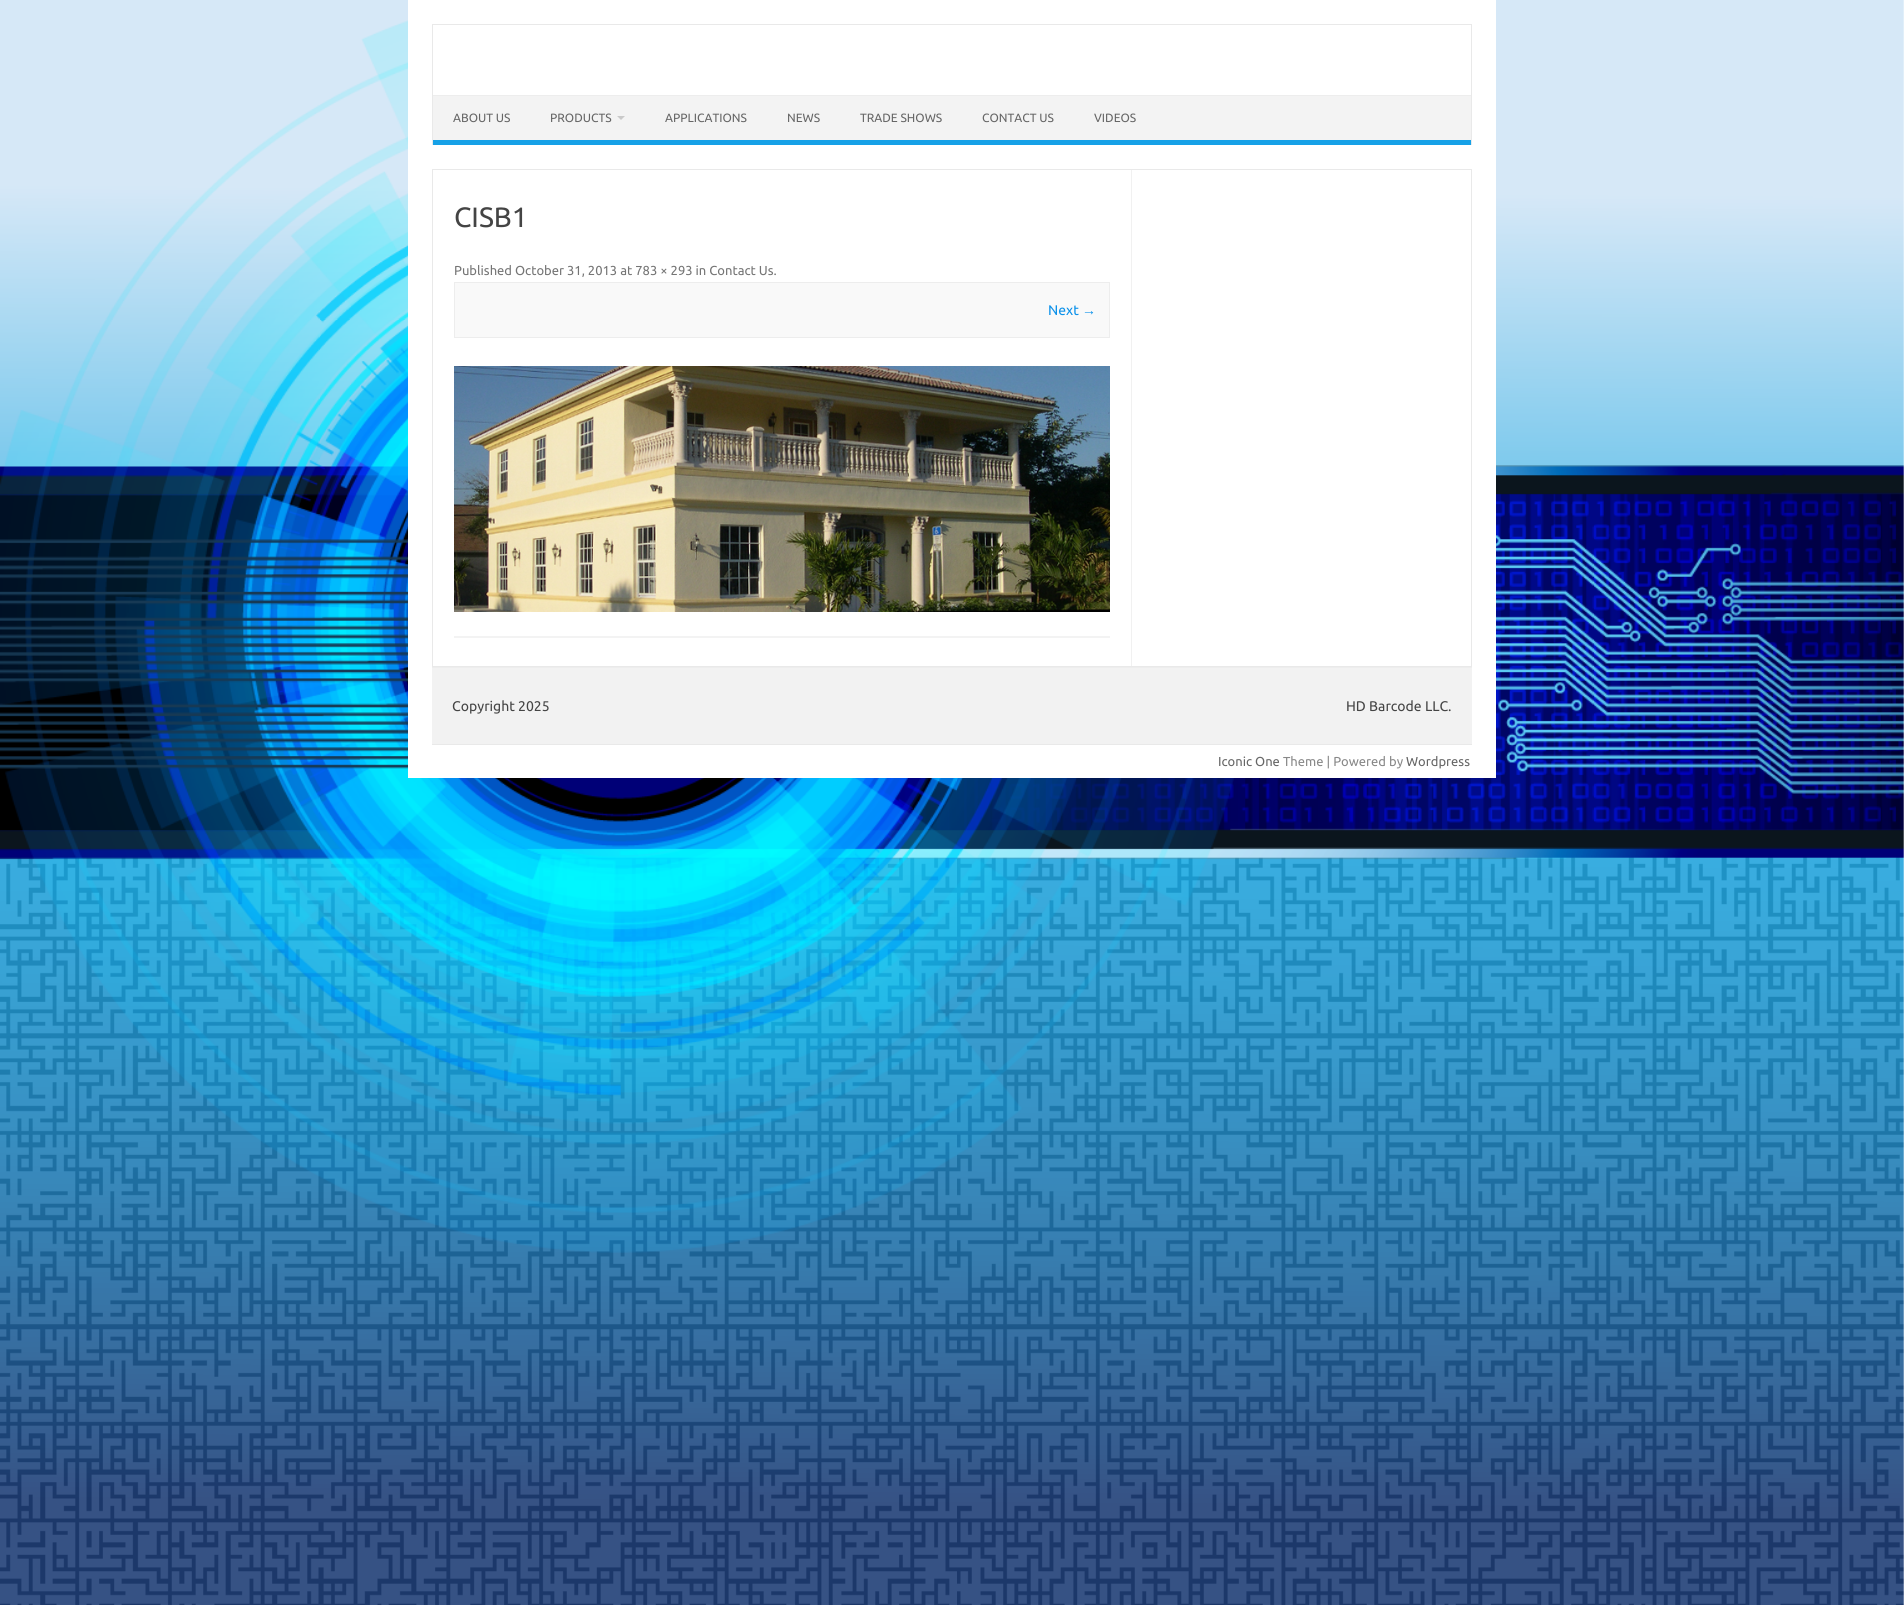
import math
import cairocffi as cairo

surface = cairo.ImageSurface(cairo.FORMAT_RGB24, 1904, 1605)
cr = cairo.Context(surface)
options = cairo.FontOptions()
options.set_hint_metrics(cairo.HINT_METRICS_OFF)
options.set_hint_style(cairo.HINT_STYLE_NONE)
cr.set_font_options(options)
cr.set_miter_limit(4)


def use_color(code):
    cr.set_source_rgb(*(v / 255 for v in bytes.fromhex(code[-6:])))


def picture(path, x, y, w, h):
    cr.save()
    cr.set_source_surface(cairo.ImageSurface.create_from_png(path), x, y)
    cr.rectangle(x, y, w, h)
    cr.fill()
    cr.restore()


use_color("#ffffff")
cr.paint()
picture("img1.png", 0, 0, 1904, 1605)
use_color("#ffffff")
cr.rectangle(408, 0, 1088, 778)
cr.fill()
use_color("#e9e9e9")
cr.rectangle(432, 24, 1040, 1)
cr.fill()
cr.rectangle(1471, 24, 1, 121)
cr.fill()
cr.rectangle(432, 24, 1, 121)
cr.fill()
use_color("#f3f3f3")
cr.rectangle(433, 96, 1038, 44)
cr.fill()
use_color("#ededed")
cr.rectangle(433, 95, 1038, 1)
cr.fill()
use_color("#16a1e7")
cr.rectangle(433, 140, 1038, 5)
cr.fill()
cr.select_font_face("Ubuntu")
cr.set_font_size(12)
use_color("#666666")
cr.move_to(453, 122)
cr.show_text("ABOUT US")
cr.move_to(550, 122)
cr.show_text("PRODUCTS")
use_color("#c9c9c9")
cr.new_path()
cr.move_to(617, 116)
cr.line_to(625, 116)
cr.line_to(621, 120)
cr.close_path()
cr.fill()
use_color("#666666")
cr.move_to(665, 122)
cr.show_text("APPLICATIONS")
cr.move_to(787, 122)
cr.show_text("NEWS")
cr.move_to(860, 122)
cr.show_text("TRADE SHOWS")
cr.move_to(982, 122)
cr.show_text("CONTACT US")
cr.move_to(1094, 122)
cr.show_text("VIDEOS")
cr.rectangle(432.5, 169.5, 1039, 497)
use_color("#e9e9e9")
cr.set_line_width(1)
cr.stroke()
use_color("#f1f1f1")
cr.rectangle(1131, 170, 1, 496)
cr.fill()
use_color("#f3f3f3")
cr.rectangle(454, 636, 656, 2)
cr.fill()
cr.set_font_size(28)
use_color("#444444")
cr.move_to(454, 227)
cr.show_text("CISB1")
cr.set_font_size(13)
use_color("#757575")
cr.move_to(454, 275)
cr.show_text("Published October 31, 2013 at 783 × 293 in Contact Us.")
use_color("#f9f9f9")
cr.rectangle(454.5, 282.5, 655, 55)
cr.fill_preserve()
use_color("#ededed")
cr.stroke()
cr.set_font_size(14)
use_color("#0b91ea")
cr.move_to(1048, 315)
cr.show_text("Next")
cr.select_font_face("Liberation Sans")
cr.move_to(1082, 315)
cr.show_text("→")
picture("img2.png", 454, 366, 656, 246)
use_color("#f2f2f2")
cr.rectangle(432, 668, 1040, 76)
cr.fill()
use_color("#ededed")
cr.rectangle(432, 667, 1040, 1)
cr.fill()
use_color("#e9e9e9")
cr.rectangle(432, 744, 1040, 1)
cr.fill()
cr.select_font_face("Ubuntu")
use_color("#444444")
cr.move_to(452, 711)
cr.show_text("Copyright 2025")
cr.move_to(1346, 711)
cr.show_text("HD Barcode LLC.")
cr.set_font_size(13)
use_color("#666666")
cr.move_to(1218, 766)
cr.show_text("Iconic One")
use_color("#888888")
cr.move_to(1283, 766)
cr.show_text("Theme | Powered by")
use_color("#666666")
cr.move_to(1406, 766)
cr.show_text("Wordpress")
surface.write_to_png("result.png")
